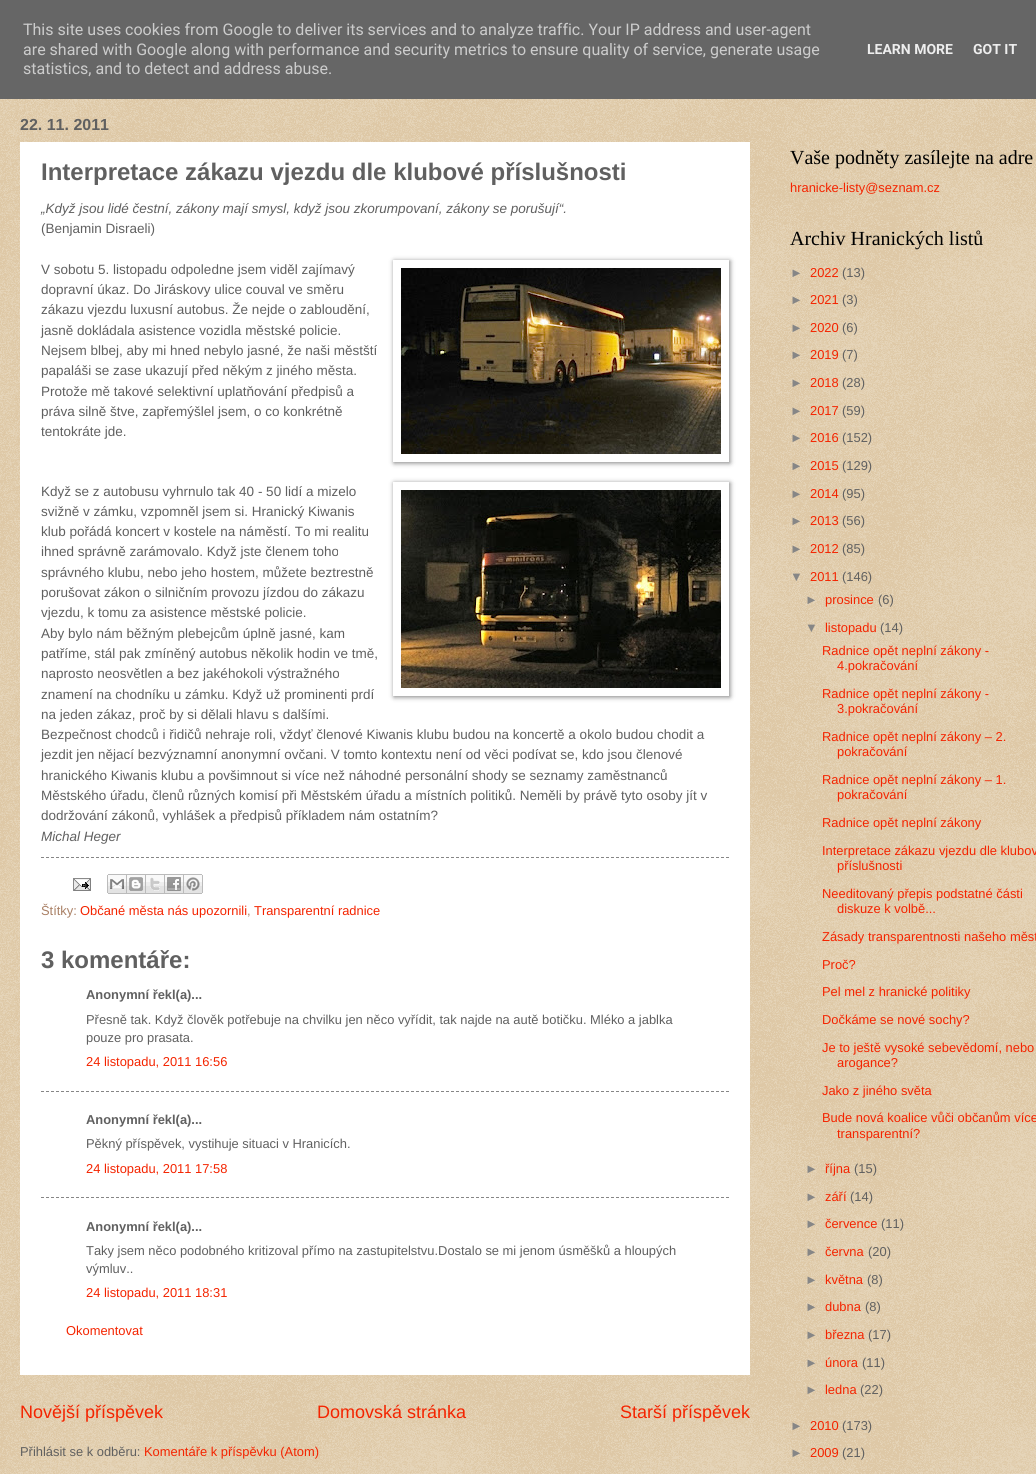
import math
import cairocffi as cairo

surface = cairo.ImageSurface(cairo.FORMAT_RGB24, 1036, 1474)
cr = cairo.Context(surface)
options = cairo.FontOptions()
options.set_hint_metrics(cairo.HINT_METRICS_OFF)
options.set_hint_style(cairo.HINT_STYLE_NONE)
cr.set_font_options(options)
cr.set_miter_limit(4)


def use_color(code):
    cr.set_source_rgb(*(v / 255 for v in bytes.fromhex(code[-6:])))


def round_rect(x, y, w, h, r):
    cr.new_sub_path()
    for i, (u, v) in enumerate([(x + w - r, y + h - r), (x + r, y + h - r), (x + r, y + r), (x + w - r, y + r)]):
        cr.arc(u, v, r, i * math.pi / 2, (i + 1) * math.pi / 2)
    cr.close_path()


def shadow(x, y, w, h, r, blur, alpha):
    cr.push_group_with_content(cairo.CONTENT_ALPHA)
    cr.set_operator(cairo.OPERATOR_SOURCE)
    for i in range(15, -16, -2):
        e = blur * i / 6
        if min(w, h) + 2 * e > 0:
            cr.set_source_rgba(0, 0, 0, alpha * math.erfc((i - 1) / 8.5) / 2)
            round_rect(x - e, y - e, w + 2 * e, h + 2 * e, max(0, min(r + e + blur * .6, min(w, h) / 2 + e)))
            cr.fill()
    cr.mask(cr.pop_group())


def picture(path, x, y, w, h):
    cr.save()
    cr.set_source_surface(cairo.ImageSurface.create_from_png(path), x, y)
    cr.rectangle(x, y, w, h)
    cr.fill()
    cr.restore()


use_color("#c6a165")
cr.paint()
picture("img1.png", 0, 99, 1036, 1375)
use_color("#666666")
cr.rectangle(0, 0, 1036, 99)
cr.fill()
cr.select_font_face("Roboto")
cr.set_font_size(16)
use_color("#cccccc")
cr.move_to(23, 35)
cr.show_text("This site uses cookies from Google to deliver its services and to analyze traffic. Your IP address and user-agent")
cr.move_to(23, 55)
cr.show_text("are shared with Google along with performance and security metrics to ensure quality of service, generate usage")
cr.move_to(23, 74)
cr.show_text("statistics, and to detect and address abuse.")
cr.select_font_face("Roboto", cairo.FONT_SLANT_NORMAL, cairo.FONT_WEIGHT_BOLD)
cr.set_font_size(14)
use_color("#eeeeee")
cr.move_to(867, 54)
cr.show_text("LEARN MORE")
cr.move_to(973, 54)
cr.show_text("GOT IT")
cr.select_font_face("Liberation Sans", cairo.FONT_SLANT_NORMAL, cairo.FONT_WEIGHT_BOLD)
cr.set_font_size(16)
use_color("#606060")
cr.move_to(20, 130)
cr.show_text("22. 11. 2011")
use_color("#ffffff")
cr.rectangle(20, 142, 730, 1233)
cr.fill()
cr.set_font_size(24)
use_color("#606060")
cr.move_to(41, 180)
cr.show_text("Interpretace zákazu vjezdu dle klubové příslušnosti")
cr.select_font_face("Liberation Sans", cairo.FONT_SLANT_ITALIC)
cr.set_font_size(13.5)
cr.move_to(41, 213)
cr.show_text("„Když jsou lidé čestní, zákony mají smysl, když jsou zkorumpovaní, zákony se porušují“.")
cr.select_font_face("Liberation Sans")
cr.move_to(41, 233)
cr.show_text("(Benjamin Disraeli)")
cr.move_to(41, 274)
cr.show_text("V sobotu 5. listopadu odpoledne jsem viděl zajímavý")
cr.move_to(41, 294)
cr.show_text("dopravní úkaz. Do Jiráskovy ulice couval ve směru")
cr.move_to(41, 314)
cr.show_text("zákazu vjezdu luxusní autobus. Že nejde o zabloudění,")
cr.move_to(41, 335)
cr.show_text("jasně dokládala asistence vozidla městské policie.")
cr.move_to(41, 355)
cr.show_text("Nejsem blbej, aby mi hned nebylo jasné, že naši městští")
cr.move_to(41, 375)
cr.show_text("papaláši se zase ukazují před někým z jiného města.")
cr.move_to(41, 396)
cr.show_text("Protože mě takové selektivní uplatňování předpisů a")
cr.move_to(41, 416)
cr.show_text("práva silně štve, zapřemýšlel jsem, o co konkrétně")
cr.move_to(41, 436)
cr.show_text("tentokráte jde.")
cr.save()
cr.set_fill_rule(cairo.FILL_RULE_EVEN_ODD)
cr.new_path()
cr.move_to(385, 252)
cr.line_to(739, 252)
cr.line_to(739, 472)
cr.line_to(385, 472)
cr.close_path()
cr.move_to(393, 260)
cr.line_to(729, 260)
cr.line_to(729, 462)
cr.line_to(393, 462)
cr.close_path()
cr.clip()
use_color("#000000")
shadow(394, 261, 336, 202, 0, 2.5, 0.5)
cr.restore()
picture("img2.png", 401, 268, 320, 186)
cr.move_to(41, 496)
cr.show_text("Když se z autobusu vyhrnulo tak 40 - 50 lidí a mizelo")
cr.move_to(41, 516)
cr.show_text("svižně v zámku, vzpomněl jsem si. Hranický Kiwanis")
cr.move_to(41, 536)
cr.show_text("klub pořádá koncert v kostele na náměstí. To mi realitu")
cr.move_to(41, 556)
cr.show_text("ihned správně zarámovalo. Když jste členem toho")
cr.move_to(41, 577)
cr.show_text("správného klubu, nebo jeho hostem, můžete beztrestně")
cr.move_to(41, 597)
cr.show_text("porušovat zákon o silničním provozu jízdou do zákazu")
cr.move_to(41, 617)
cr.show_text("vjezdu, k tomu za asistence městské policie.")
cr.save()
cr.set_fill_rule(cairo.FILL_RULE_EVEN_ODD)
cr.new_path()
cr.move_to(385, 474)
cr.line_to(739, 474)
cr.line_to(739, 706)
cr.line_to(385, 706)
cr.close_path()
cr.move_to(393, 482)
cr.line_to(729, 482)
cr.line_to(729, 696)
cr.line_to(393, 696)
cr.close_path()
cr.clip()
use_color("#000000")
shadow(394, 483, 336, 214, 0, 2.5, 0.5)
cr.restore()
picture("img3.png", 401, 490, 320, 198)
cr.move_to(41, 638)
cr.show_text("Aby bylo nám běžným plebejcům úplně jasné, kam")
cr.move_to(41, 658)
cr.show_text("patříme, stál pak zmíněný autobus několik hodin ve tmě,")
cr.move_to(41, 678)
cr.show_text("naprosto neosvětlen a bez jakéhokoli výstražného")
cr.move_to(41, 699)
cr.show_text("znamení na chodníku u zámku. Když už prominenti prdí")
cr.move_to(41, 719)
cr.show_text("na jeden zákaz, proč by si dělali hlavu s dalšími.")
cr.move_to(41, 739)
cr.show_text("Bezpečnost chodců i řidičů nehraje roli, vždyť členové Kiwanis klubu budou na koncertě a okolo budou chodit a")
cr.move_to(41, 759)
cr.show_text("jezdit jen nějací bezvýznamní anonymní ovčani. V tomto kontextu není od věci podívat se, kdo jsou členové")
cr.move_to(41, 780)
cr.show_text("hranického Kiwanis klubu a povšimnout si více než náhodné personální shody se seznamy zaměstnanců")
cr.move_to(41, 800)
cr.show_text("Městského úřadu, členů různých komisí při Městském úřadu a místních politiků. Neměli by právě tyto osoby jít v")
cr.move_to(41, 820)
cr.show_text("dodržování zákonů, vyhlášek a předpisů příkladem nám ostatním?")
cr.select_font_face("Liberation Sans", cairo.FONT_SLANT_ITALIC)
cr.move_to(41, 841)
cr.show_text("Michal Heger")
cr.new_path()
cr.move_to(41, 857.5)
cr.line_to(729, 857.5)
use_color("#868686")
cr.set_line_width(1)
cr.set_dash([3, 2])
cr.stroke()
picture("img4.png", 73, 878, 18, 13)
picture("img5.png", 107, 874, 20, 20)
picture("img6.png", 127, 874, 19, 20)
picture("img7.png", 146, 874, 19, 20)
picture("img8.png", 165, 874, 19, 20)
picture("img9.png", 184, 874, 19, 20)
cr.select_font_face("Liberation Sans")
cr.set_font_size(12.9)
use_color("#a97f64")
cr.move_to(41, 915)
cr.show_text("Štítky:")
use_color("#f42400")
cr.move_to(80, 915)
cr.show_text("Občané města nás upozornili")
use_color("#a97f64")
cr.move_to(247, 915)
cr.show_text(",")
use_color("#f42400")
cr.move_to(254, 915)
cr.show_text("Transparentní radnice")
cr.select_font_face("Liberation Sans", cairo.FONT_SLANT_NORMAL, cairo.FONT_WEIGHT_BOLD)
cr.set_font_size(24)
use_color("#606060")
cr.move_to(41, 968)
cr.show_text("3 komentáře:")
cr.set_font_size(12.9)
cr.move_to(86, 999)
cr.show_text("Anonymní řekl(a)...")
cr.select_font_face("Liberation Sans")
cr.move_to(86, 1024)
cr.show_text("Přesně tak. Když člověk potřebuje na chvilku jen něco vyřídit, tak najde na autě botičku. Mléko a jablka")
cr.move_to(86, 1042)
cr.show_text("pouze pro prasata.")
use_color("#f42400")
cr.move_to(86, 1066)
cr.show_text("24 listopadu, 2011 16:56")
cr.new_path()
cr.move_to(41, 1091.5)
cr.line_to(729, 1091.5)
use_color("#868686")
cr.stroke()
cr.select_font_face("Liberation Sans", cairo.FONT_SLANT_NORMAL, cairo.FONT_WEIGHT_BOLD)
use_color("#606060")
cr.move_to(86, 1124)
cr.show_text("Anonymní řekl(a)...")
cr.select_font_face("Liberation Sans")
cr.move_to(86, 1148)
cr.show_text("Pěkný příspěvek, vystihuje situaci v Hranicích.")
use_color("#f42400")
cr.move_to(86, 1173)
cr.show_text("24 listopadu, 2011 17:58")
cr.new_path()
cr.move_to(41, 1197.5)
cr.line_to(729, 1197.5)
use_color("#868686")
cr.stroke()
cr.select_font_face("Liberation Sans", cairo.FONT_SLANT_NORMAL, cairo.FONT_WEIGHT_BOLD)
use_color("#606060")
cr.move_to(86, 1231)
cr.show_text("Anonymní řekl(a)...")
cr.select_font_face("Liberation Sans")
cr.move_to(86, 1255)
cr.show_text("Taky jsem něco podobného kritizoval přímo na zastupitelstvu.Dostalo se mi jenom úsměšků a hloupých")
cr.move_to(86, 1273)
cr.show_text("výmluv..")
use_color("#f42400")
cr.move_to(86, 1297)
cr.show_text("24 listopadu, 2011 18:31")
cr.move_to(66, 1335)
cr.show_text("Okomentovat")
cr.set_font_size(18)
cr.move_to(20, 1418)
cr.show_text("Novější příspěvek")
cr.move_to(317, 1418)
cr.show_text("Domovská stránka")
cr.move_to(620, 1418)
cr.show_text("Starší příspěvek")
cr.set_font_size(12.9)
use_color("#606060")
cr.move_to(20, 1456)
cr.show_text("Přihlásit se k odběru:")
use_color("#f42400")
cr.move_to(144, 1456)
cr.show_text("Komentáře k příspěvku (Atom)")
cr.select_font_face("Liberation Serif")
cr.set_font_size(20)
use_color("#000000")
cr.move_to(790, 164)
cr.show_text("Vaše podněty zasílejte na adre")
cr.select_font_face("Liberation Sans")
cr.set_font_size(12.9)
use_color("#f42400")
cr.move_to(790, 192)
cr.show_text("hranicke-listy@seznam.cz")
cr.select_font_face("Liberation Serif")
cr.set_font_size(20)
use_color("#000000")
cr.move_to(790, 245)
cr.show_text("Archiv Hranických listů")
cr.select_font_face("Liberation Sans")
cr.set_font_size(12.9)
use_color("#868686")
cr.move_to(790, 277)
cr.show_text("►")
use_color("#f42400")
cr.move_to(810, 277)
cr.show_text("2022")
use_color("#606060")
cr.move_to(842, 277)
cr.show_text("(13)")
use_color("#868686")
cr.move_to(790, 304)
cr.show_text("►")
use_color("#f42400")
cr.move_to(810, 304)
cr.show_text("2021")
use_color("#606060")
cr.move_to(842, 304)
cr.show_text("(3)")
use_color("#868686")
cr.move_to(790, 332)
cr.show_text("►")
use_color("#f42400")
cr.move_to(810, 332)
cr.show_text("2020")
use_color("#606060")
cr.move_to(842, 332)
cr.show_text("(6)")
use_color("#868686")
cr.move_to(790, 359)
cr.show_text("►")
use_color("#f42400")
cr.move_to(810, 359)
cr.show_text("2019")
use_color("#606060")
cr.move_to(842, 359)
cr.show_text("(7)")
use_color("#868686")
cr.move_to(790, 387)
cr.show_text("►")
use_color("#f42400")
cr.move_to(810, 387)
cr.show_text("2018")
use_color("#606060")
cr.move_to(842, 387)
cr.show_text("(28)")
use_color("#868686")
cr.move_to(790, 415)
cr.show_text("►")
use_color("#f42400")
cr.move_to(810, 415)
cr.show_text("2017")
use_color("#606060")
cr.move_to(842, 415)
cr.show_text("(59)")
use_color("#868686")
cr.move_to(790, 442)
cr.show_text("►")
use_color("#f42400")
cr.move_to(810, 442)
cr.show_text("2016")
use_color("#606060")
cr.move_to(842, 442)
cr.show_text("(152)")
use_color("#868686")
cr.move_to(790, 470)
cr.show_text("►")
use_color("#f42400")
cr.move_to(810, 470)
cr.show_text("2015")
use_color("#606060")
cr.move_to(842, 470)
cr.show_text("(129)")
use_color("#868686")
cr.move_to(790, 498)
cr.show_text("►")
use_color("#f42400")
cr.move_to(810, 498)
cr.show_text("2014")
use_color("#606060")
cr.move_to(842, 498)
cr.show_text("(95)")
use_color("#868686")
cr.move_to(790, 525)
cr.show_text("►")
use_color("#f42400")
cr.move_to(810, 525)
cr.show_text("2013")
use_color("#606060")
cr.move_to(842, 525)
cr.show_text("(56)")
use_color("#868686")
cr.move_to(790, 553)
cr.show_text("►")
use_color("#f42400")
cr.move_to(810, 553)
cr.show_text("2012")
use_color("#606060")
cr.move_to(842, 553)
cr.show_text("(85)")
use_color("#868686")
cr.move_to(790, 581)
cr.show_text("▼")
use_color("#f42400")
cr.move_to(810, 581)
cr.show_text("2011")
use_color("#606060")
cr.move_to(842, 581)
cr.show_text("(146)")
use_color("#868686")
cr.move_to(805, 604)
cr.show_text("►")
use_color("#f42400")
cr.move_to(825, 604)
cr.show_text("prosince")
use_color("#606060")
cr.move_to(878, 604)
cr.show_text("(6)")
use_color("#868686")
cr.move_to(805, 632)
cr.show_text("▼")
use_color("#f42400")
cr.move_to(825, 632)
cr.show_text("listopadu")
use_color("#606060")
cr.move_to(880, 632)
cr.show_text("(14)")
use_color("#f42400")
cr.move_to(822, 655)
cr.show_text("Radnice opět neplní zákony -")
cr.move_to(837, 670)
cr.show_text("4.pokračování")
cr.move_to(822, 698)
cr.show_text("Radnice opět neplní zákony -")
cr.move_to(837, 713)
cr.show_text("3.pokračování")
cr.move_to(822, 741)
cr.show_text("Radnice opět neplní zákony – 2.")
cr.move_to(837, 756)
cr.show_text("pokračování")
cr.move_to(822, 784)
cr.show_text("Radnice opět neplní zákony – 1.")
cr.move_to(837, 799)
cr.show_text("pokračování")
cr.move_to(822, 827)
cr.show_text("Radnice opět neplní zákony")
cr.move_to(822, 855)
cr.show_text("Interpretace zákazu vjezdu dle klubov")
cr.move_to(837, 870)
cr.show_text("příslušnosti")
cr.move_to(822, 898)
cr.show_text("Needitovaný přepis podstatné části")
cr.move_to(837, 913)
cr.show_text("diskuze k volbě...")
cr.move_to(822, 941)
cr.show_text("Zásady transparentnosti našeho měst")
cr.move_to(822, 969)
cr.show_text("Proč?")
cr.move_to(822, 996)
cr.show_text("Pel mel z hranické politiky")
cr.move_to(822, 1024)
cr.show_text("Dočkáme se nové sochy?")
cr.move_to(822, 1052)
cr.show_text("Je to ještě vysoké sebevědomí, nebo")
cr.move_to(837, 1067)
cr.show_text("arogance?")
cr.move_to(822, 1095)
cr.show_text("Jako z jiného světa")
cr.move_to(822, 1122)
cr.show_text("Bude nová koalice vůči občanům více")
cr.move_to(837, 1138)
cr.show_text("transparentní?")
use_color("#868686")
cr.move_to(805, 1173)
cr.show_text("►")
use_color("#f42400")
cr.move_to(825, 1173)
cr.show_text("října")
use_color("#606060")
cr.move_to(854, 1173)
cr.show_text("(15)")
use_color("#868686")
cr.move_to(805, 1201)
cr.show_text("►")
use_color("#f42400")
cr.move_to(825, 1201)
cr.show_text("září")
use_color("#606060")
cr.move_to(850, 1201)
cr.show_text("(14)")
use_color("#868686")
cr.move_to(805, 1228)
cr.show_text("►")
use_color("#f42400")
cr.move_to(825, 1228)
cr.show_text("července")
use_color("#606060")
cr.move_to(881, 1228)
cr.show_text("(11)")
use_color("#868686")
cr.move_to(805, 1256)
cr.show_text("►")
use_color("#f42400")
cr.move_to(825, 1256)
cr.show_text("června")
use_color("#606060")
cr.move_to(868, 1256)
cr.show_text("(20)")
use_color("#868686")
cr.move_to(805, 1284)
cr.show_text("►")
use_color("#f42400")
cr.move_to(825, 1284)
cr.show_text("května")
use_color("#606060")
cr.move_to(867, 1284)
cr.show_text("(8)")
use_color("#868686")
cr.move_to(805, 1311)
cr.show_text("►")
use_color("#f42400")
cr.move_to(825, 1311)
cr.show_text("dubna")
use_color("#606060")
cr.move_to(865, 1311)
cr.show_text("(8)")
use_color("#868686")
cr.move_to(805, 1339)
cr.show_text("►")
use_color("#f42400")
cr.move_to(825, 1339)
cr.show_text("března")
use_color("#606060")
cr.move_to(868, 1339)
cr.show_text("(17)")
use_color("#868686")
cr.move_to(805, 1367)
cr.show_text("►")
use_color("#f42400")
cr.move_to(825, 1367)
cr.show_text("února")
use_color("#606060")
cr.move_to(862, 1367)
cr.show_text("(11)")
use_color("#868686")
cr.move_to(805, 1394)
cr.show_text("►")
use_color("#f42400")
cr.move_to(825, 1394)
cr.show_text("ledna")
use_color("#606060")
cr.move_to(860, 1394)
cr.show_text("(22)")
use_color("#868686")
cr.move_to(790, 1430)
cr.show_text("►")
use_color("#f42400")
cr.move_to(810, 1430)
cr.show_text("2010")
use_color("#606060")
cr.move_to(842, 1430)
cr.show_text("(173)")
use_color("#868686")
cr.move_to(790, 1457)
cr.show_text("►")
use_color("#f42400")
cr.move_to(810, 1457)
cr.show_text("2009")
use_color("#606060")
cr.move_to(842, 1457)
cr.show_text("(21)")
surface.write_to_png("result.png")
